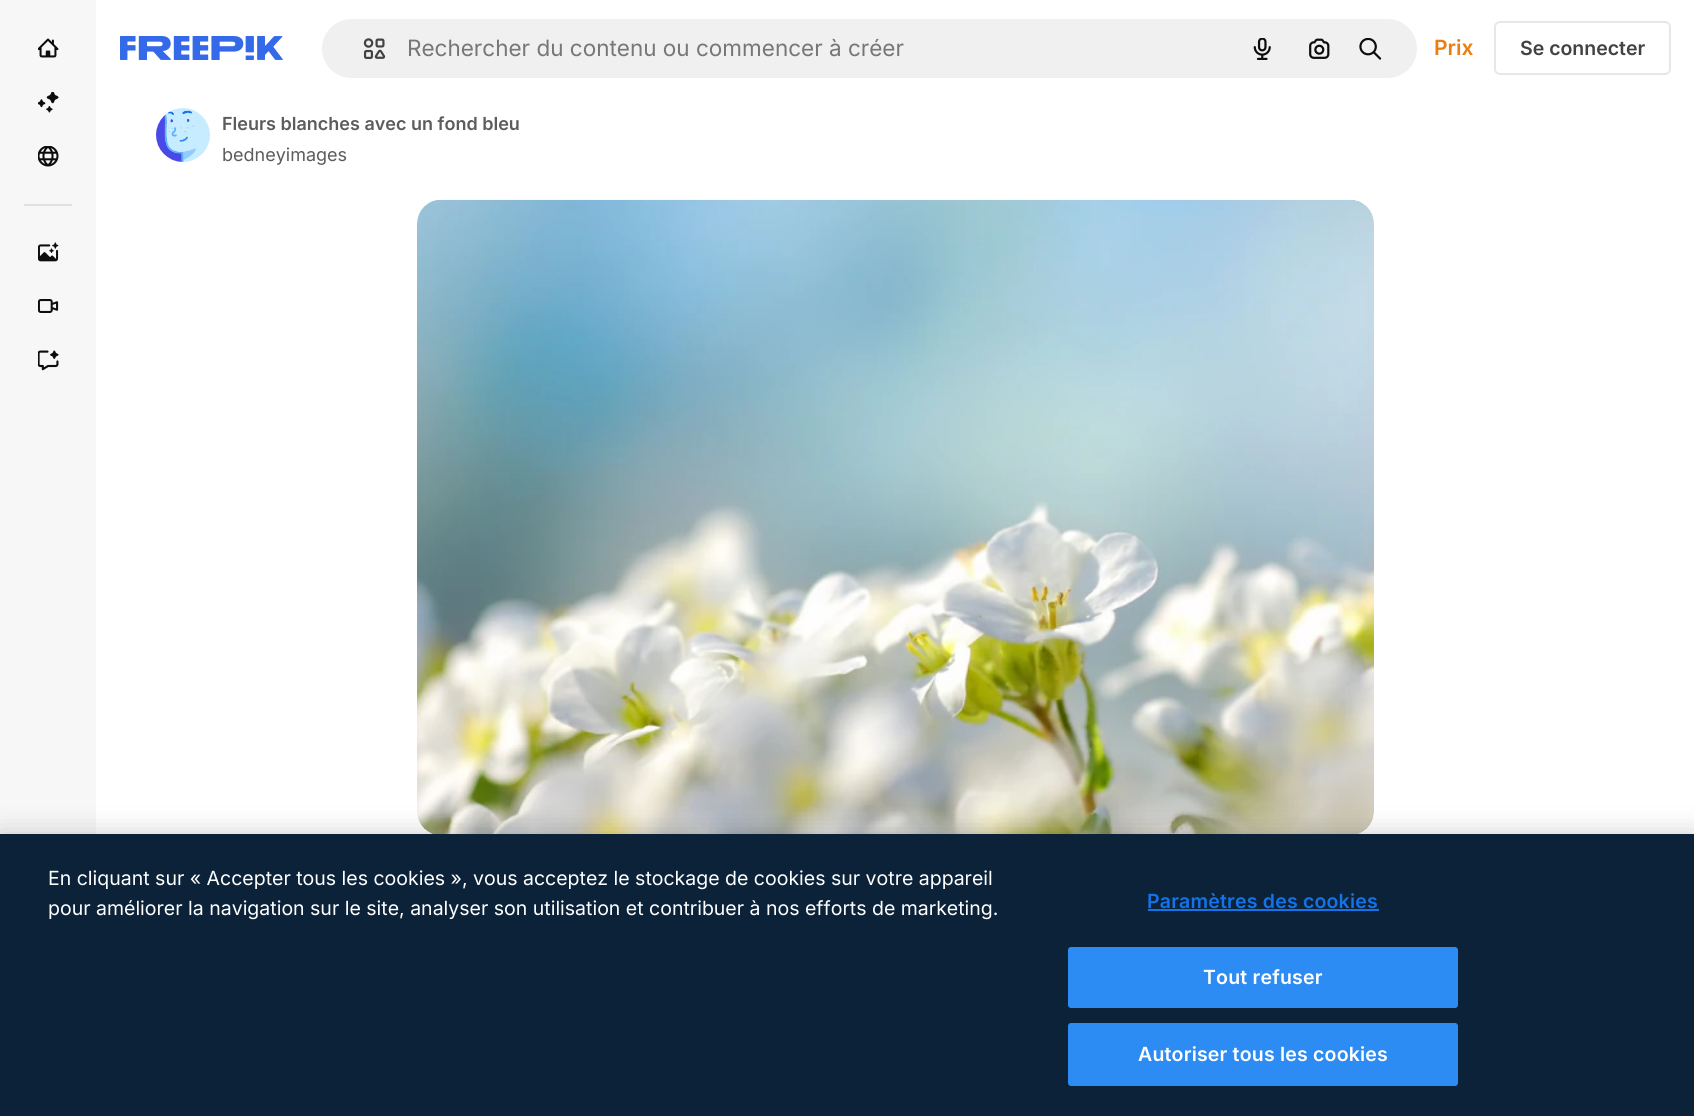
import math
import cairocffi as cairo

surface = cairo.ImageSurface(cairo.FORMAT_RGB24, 1694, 1116)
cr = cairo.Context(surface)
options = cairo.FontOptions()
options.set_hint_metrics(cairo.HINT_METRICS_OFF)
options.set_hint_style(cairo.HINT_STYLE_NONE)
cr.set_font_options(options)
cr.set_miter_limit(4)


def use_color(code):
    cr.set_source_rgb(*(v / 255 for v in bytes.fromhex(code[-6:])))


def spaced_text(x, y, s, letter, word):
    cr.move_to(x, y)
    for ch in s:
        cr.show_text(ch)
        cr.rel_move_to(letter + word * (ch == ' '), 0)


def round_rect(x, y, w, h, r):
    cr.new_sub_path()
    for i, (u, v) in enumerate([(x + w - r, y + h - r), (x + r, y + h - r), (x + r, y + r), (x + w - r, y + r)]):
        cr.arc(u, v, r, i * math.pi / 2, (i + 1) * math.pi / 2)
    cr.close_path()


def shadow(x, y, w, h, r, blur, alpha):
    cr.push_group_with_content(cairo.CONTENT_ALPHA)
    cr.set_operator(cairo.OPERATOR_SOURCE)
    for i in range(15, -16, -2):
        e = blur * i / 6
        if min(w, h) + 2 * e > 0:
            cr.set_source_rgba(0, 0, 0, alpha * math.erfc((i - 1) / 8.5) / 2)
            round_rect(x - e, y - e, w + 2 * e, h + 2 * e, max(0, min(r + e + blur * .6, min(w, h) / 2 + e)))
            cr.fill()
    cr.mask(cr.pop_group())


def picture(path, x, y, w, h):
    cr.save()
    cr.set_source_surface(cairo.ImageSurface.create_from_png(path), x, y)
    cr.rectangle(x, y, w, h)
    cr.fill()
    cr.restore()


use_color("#ffffff")
cr.paint()
use_color("#f7f7f7")
cr.rectangle(0, 0, 96, 834)
cr.fill()
picture("img1.png", 38, 38, 21, 20)
picture("img2.png", 38, 92, 21, 21)
picture("img3.png", 38, 146, 21, 21)
use_color("#e0e0e0")
cr.rectangle(24, 204, 48, 2)
cr.fill()
picture("img4.png", 38, 242, 21, 20)
picture("img5.png", 38, 299, 21, 14)
picture("img6.png", 38, 350, 21, 21)
picture("img7.png", 120, 36, 163, 24)
use_color("#f0f0f0")
round_rect(321, 18, 1097, 61, 30.5)
cr.fill_preserve()
use_color("#ffffff")
cr.stroke()
picture("img8.png", 363, 38, 23, 21)
cr.select_font_face("Inter")
cr.set_font_size(22.5)
use_color("#777777")
cr.move_to(407, 56)
cr.show_text("Rechercher du contenu ou commencer à créer")
picture("img9.png", 1253, 38, 18, 22)
picture("img10.png", 1309, 38, 21, 21)
picture("img11.png", 1359, 38, 23, 22)
cr.select_font_face("Inter SemiBold")
cr.set_font_size(21)
use_color("#ea7e11")
cr.move_to(1434, 55)
cr.show_text("Prix")
round_rect(1495, 22, 175, 52, 5)
use_color("#e7e7e7")
cr.stroke()
cr.set_font_size(19.5)
use_color("#424242")
cr.move_to(1520, 55)
cr.show_text("Se connecter")
picture("img12.png", 156, 108, 54, 54)
cr.set_font_size(18)
use_color("#5c5c5c")
cr.move_to(222, 130)
cr.show_text("Fleurs blanches avec un fond bleu")
cr.select_font_face("Inter")
cr.move_to(222, 161)
cr.show_text("bedneyimages")
picture("img13.png", 417, 199, 957, 635)
use_color("#000000")
shadow(0, 834, 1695, 282, 0, 13.5, 0.2)
use_color("#0b2239")
cr.rectangle(0, 834, 1694, 282)
cr.fill()
cr.set_font_size(19.5)
use_color("#ffffff")
cr.move_to(48, 885)
cr.show_text("En cliquant sur « Accepter tous les cookies », vous acceptez le stockage de cookies sur votre appareil")
cr.move_to(48, 915)
cr.show_text("pour améliorer la navigation sur le site, analyser son utilisation et contribuer à nos efforts de marketing.")
cr.select_font_face("Inter SemiBold")
use_color("#1273eb")
spaced_text(1147, 908, "Paramètres des cookies", 0.2, 0)
cr.rectangle(1148, 909, 231, 2)
cr.fill()
use_color("#2c8cf4")
round_rect(1069, 948, 388, 59, 2)
cr.fill_preserve()
cr.stroke()
use_color("#ffffff")
spaced_text(1203, 984, "Tout refuser", 0.2, 0)
use_color("#2c8cf4")
round_rect(1069, 1024, 388, 61, 2)
cr.fill_preserve()
cr.stroke()
use_color("#ffffff")
spaced_text(1138, 1061, "Autoriser tous les cookies", 0.2, 0)
surface.write_to_png("result.png")
